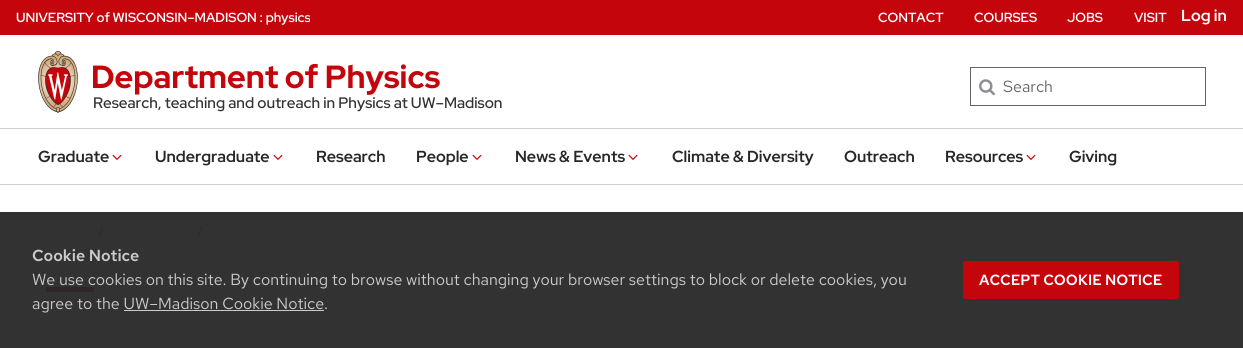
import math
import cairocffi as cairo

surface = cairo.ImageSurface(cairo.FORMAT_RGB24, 1243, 348)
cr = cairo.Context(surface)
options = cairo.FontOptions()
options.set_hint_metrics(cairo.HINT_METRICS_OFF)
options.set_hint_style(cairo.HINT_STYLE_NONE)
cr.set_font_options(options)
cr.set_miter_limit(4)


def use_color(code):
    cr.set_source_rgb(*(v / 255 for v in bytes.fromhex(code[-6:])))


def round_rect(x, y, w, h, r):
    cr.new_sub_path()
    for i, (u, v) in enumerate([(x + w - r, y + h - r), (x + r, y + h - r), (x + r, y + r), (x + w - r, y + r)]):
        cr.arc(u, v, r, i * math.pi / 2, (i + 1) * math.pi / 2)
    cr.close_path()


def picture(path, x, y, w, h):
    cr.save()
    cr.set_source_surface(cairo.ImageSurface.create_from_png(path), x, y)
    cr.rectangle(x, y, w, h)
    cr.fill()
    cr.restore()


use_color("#ffffff")
cr.paint()
use_color("#333233")
cr.rectangle(0, 212, 1243, 136)
cr.fill()
use_color("#c5050c")
cr.rectangle(0, 0, 1243, 35)
cr.fill()
cr.select_font_face("Red Hat Display SemiBold")
cr.set_font_size(13.2)
use_color("#ffffff")
cr.move_to(878, 22)
cr.show_text("CONTACT")
cr.move_to(974, 22)
cr.show_text("COURSES")
cr.move_to(1067, 22)
cr.show_text("JOBS")
cr.move_to(1134, 22)
cr.show_text("VISIT")
cr.select_font_face("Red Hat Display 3 SemiBold")
cr.set_font_size(16)
cr.move_to(1181, 21)
cr.show_text("Log in")
use_color("#cfcfcf")
cr.rectangle(0, 128, 1243, 1)
cr.fill()
cr.rectangle(0, 184, 1243, 1)
cr.fill()
use_color("#282728")
cr.move_to(38, 162)
cr.show_text("Graduate")
picture("img1.png", 112, 154, 10, 6)
cr.move_to(155, 162)
cr.show_text("Undergraduate")
picture("img1.png", 273, 154, 10, 6)
cr.move_to(316, 162)
cr.show_text("Research")
cr.move_to(416, 162)
cr.show_text("People")
picture("img1.png", 472, 154, 10, 6)
cr.move_to(515, 162)
cr.show_text("News & Events")
picture("img1.png", 628, 154, 10, 6)
cr.move_to(672, 162)
cr.show_text("Climate & Diversity")
cr.move_to(844, 162)
cr.show_text("Outreach")
cr.move_to(945, 162)
cr.show_text("Resources")
picture("img1.png", 1026, 154, 10, 6)
cr.move_to(1069, 162)
cr.show_text("Giving")
cr.select_font_face("Red Hat Display SemiBold")
cr.set_font_size(13.2)
use_color("#ffffff")
cr.move_to(16, 22)
cr.show_text("UNIVERSITY of WISCONSIN–MADISON : physics")
picture("img2.png", 38, 51, 40, 62)
cr.select_font_face("Red Hat Display ExtraBold")
cr.set_font_size(32)
use_color("#c5050c")
cr.move_to(91, 88)
cr.show_text("Department of Physics")
cr.select_font_face("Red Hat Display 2 SemiBold")
cr.set_font_size(15.2)
use_color("#333333")
cr.move_to(93, 108)
cr.show_text("Research, teaching and outreach in Physics at UW–Madison")
picture("img3.png", 979, 79, 16, 17)
cr.rectangle(970.5, 67.5, 235, 38)
use_color("#646569")
cr.set_line_width(1)
cr.stroke()
cr.select_font_face("Red Hat Text")
cr.set_font_size(16)
cr.move_to(1003, 92)
cr.show_text("Search")
use_color("#2b2a2b")
cr.new_path()
cr.move_to(102, 227)
cr.line_to(103, 227)
cr.line_to(99.5, 237)
cr.line_to(98.5, 237)
cr.close_path()
cr.fill()
cr.new_path()
cr.move_to(201, 227)
cr.line_to(202, 227)
cr.line_to(198.5, 237)
cr.line_to(197.5, 237)
cr.close_path()
cr.fill()
cr.select_font_face("Red Hat Text SemiBold")
use_color("#cccccc")
cr.move_to(32, 261)
cr.show_text("Cookie Notice")
use_color("#302527")
cr.rectangle(46, 287, 48, 5)
cr.fill()
cr.select_font_face("Red Hat Text")
use_color("#cccccc")
cr.move_to(32, 285)
cr.show_text("We use cookies on this site. By continuing to browse without changing your browser settings to block or delete cookies, you")
cr.move_to(32, 309)
cr.show_text("agree to the UW–Madison Cookie Notice.")
cr.rectangle(124, 310, 200, 1)
cr.fill()
use_color("#c5050c")
round_rect(963, 261, 216, 38, 2)
cr.fill()
cr.select_font_face("Red Hat Text SemiBold")
cr.set_font_size(14.75)
use_color("#ffffff")
cr.move_to(979, 285)
cr.show_text("ACCEPT COOKIE NOTICE")
surface.write_to_png("result.png")
